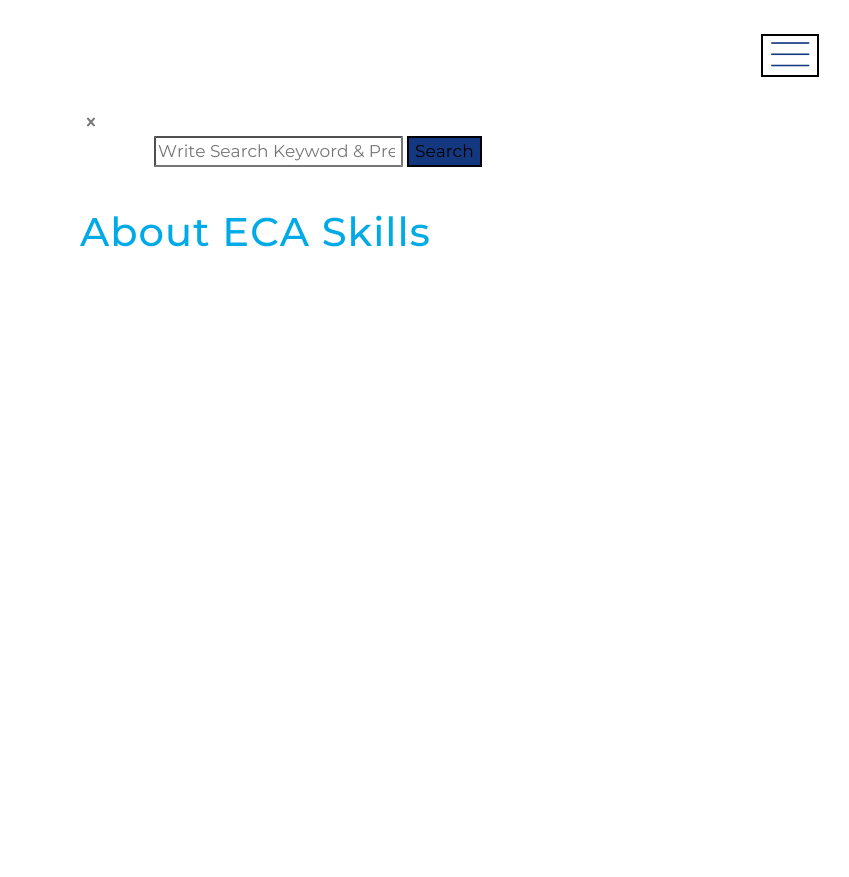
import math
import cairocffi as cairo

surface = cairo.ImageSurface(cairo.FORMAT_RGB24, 849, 877)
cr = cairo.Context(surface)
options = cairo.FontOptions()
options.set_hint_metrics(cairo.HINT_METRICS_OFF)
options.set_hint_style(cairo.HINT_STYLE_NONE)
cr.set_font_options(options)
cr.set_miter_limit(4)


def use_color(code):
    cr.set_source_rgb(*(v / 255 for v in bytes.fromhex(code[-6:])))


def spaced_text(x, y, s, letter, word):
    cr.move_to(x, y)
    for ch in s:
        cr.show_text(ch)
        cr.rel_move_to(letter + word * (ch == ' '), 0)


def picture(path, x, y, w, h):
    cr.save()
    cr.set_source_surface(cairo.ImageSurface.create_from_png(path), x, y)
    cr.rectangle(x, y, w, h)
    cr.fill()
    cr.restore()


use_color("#ffffff")
cr.paint()
cr.rectangle(762, 35, 56, 41)
use_color("#000000")
cr.stroke()
picture("img1.png", 771, 42, 39, 25)
picture("img2.png", 87, 117, 8, 10)
use_color("#4f4f4f")
cr.new_path()
cr.move_to(154, 136)
cr.line_to(403, 136)
cr.line_to(401, 138)
cr.line_to(156, 138)
cr.close_path()
cr.fill()
use_color("#767676")
cr.new_path()
cr.move_to(403, 136)
cr.line_to(403, 167)
cr.line_to(401, 165)
cr.line_to(401, 138)
cr.close_path()
cr.fill()
cr.new_path()
cr.move_to(403, 167)
cr.line_to(154, 167)
cr.line_to(156, 165)
cr.line_to(401, 165)
cr.close_path()
cr.fill()
use_color("#4f4f4f")
cr.new_path()
cr.move_to(154, 167)
cr.line_to(154, 136)
cr.line_to(156, 138)
cr.line_to(156, 165)
cr.close_path()
cr.fill()
cr.save()
cr.rectangle(158, 141, 237, 20)
cr.clip()
cr.select_font_face("Montserrat")
cr.set_font_size(17)
use_color("#757575")
cr.move_to(158, 157)
cr.show_text("Write Search Keyword & Pre")
cr.restore()
use_color("#133880")
cr.rectangle(408, 137, 73, 29)
cr.fill_preserve()
use_color("#000000")
cr.stroke()
cr.select_font_face("Montserrat")
cr.set_font_size(17)
cr.move_to(415, 157)
cr.show_text("Search")
cr.select_font_face("Montserrat Medium")
cr.set_font_size(40)
use_color("#00aae7")
spaced_text(80, 246, "About ECA Skills", 1, 0)
surface.write_to_png("result.png")
